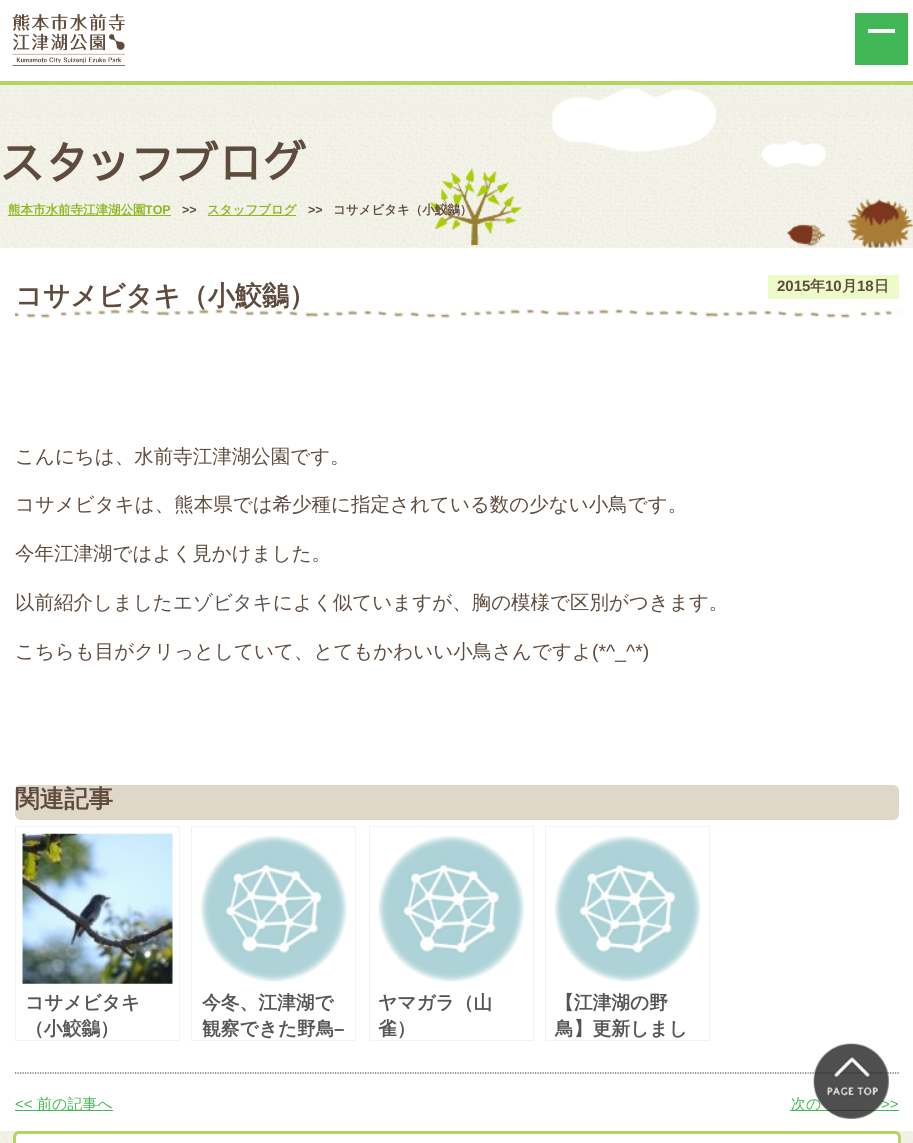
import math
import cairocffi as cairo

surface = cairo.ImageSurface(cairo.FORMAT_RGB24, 913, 1143)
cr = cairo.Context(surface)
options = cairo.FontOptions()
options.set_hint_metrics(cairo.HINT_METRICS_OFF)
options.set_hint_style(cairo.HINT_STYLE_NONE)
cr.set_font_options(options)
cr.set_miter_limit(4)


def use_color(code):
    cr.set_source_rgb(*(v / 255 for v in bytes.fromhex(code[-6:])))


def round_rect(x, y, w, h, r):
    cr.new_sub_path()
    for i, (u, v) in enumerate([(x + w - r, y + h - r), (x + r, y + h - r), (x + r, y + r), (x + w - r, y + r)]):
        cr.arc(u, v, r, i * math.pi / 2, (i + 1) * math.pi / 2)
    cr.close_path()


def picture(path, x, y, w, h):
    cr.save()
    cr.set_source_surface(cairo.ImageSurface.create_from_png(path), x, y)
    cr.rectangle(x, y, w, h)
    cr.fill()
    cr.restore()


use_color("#ffffff")
cr.paint()
picture("img1.png", 0, 85, 913, 1058)
picture("img2.png", 12, 13, 113, 53)
use_color("#42b755")
cr.rectangle(855, 13, 53, 52)
cr.fill()
use_color("#ffffff")
cr.rectangle(868, 29, 27, 4)
cr.fill()
use_color("#b4d465")
cr.rectangle(0, 81, 913, 4)
cr.fill()
picture("img3.png", 429, 88, 484, 160)
cr.select_font_face("Sawarabi Gothic", cairo.FONT_SLANT_NORMAL, cairo.FONT_WEIGHT_BOLD)
cr.set_font_size(43.75)
use_color("#5f4b3e")
cr.move_to(0, 179)
cr.show_text("スタッフブログ")
use_color("#8cb722")
cr.rectangle(8, 215, 163, 1)
cr.fill()
cr.select_font_face("WenQuanYi Zen Hei", cairo.FONT_SLANT_NORMAL, cairo.FONT_WEIGHT_BOLD)
cr.set_font_size(12.5)
cr.move_to(8, 214)
cr.show_text("熊本市水前寺江津湖公園")
cr.select_font_face("Liberation Sans", cairo.FONT_SLANT_NORMAL, cairo.FONT_WEIGHT_BOLD)
cr.move_to(145, 214)
cr.show_text("TOP")
use_color("#5f4b3e")
cr.move_to(182, 214)
cr.show_text(">>")
use_color("#8cb722")
cr.rectangle(208, 215, 88, 1)
cr.fill()
cr.select_font_face("WenQuanYi Zen Hei", cairo.FONT_SLANT_NORMAL, cairo.FONT_WEIGHT_BOLD)
cr.move_to(207, 214)
cr.show_text("スタッフブログ")
cr.select_font_face("Liberation Sans", cairo.FONT_SLANT_NORMAL, cairo.FONT_WEIGHT_BOLD)
use_color("#5f4b3e")
cr.move_to(308, 214)
cr.show_text(">>")
cr.select_font_face("WenQuanYi Zen Hei", cairo.FONT_SLANT_NORMAL, cairo.FONT_WEIGHT_BOLD)
cr.move_to(333, 214)
cr.show_text("コサメビタキ（小鮫鶲）")
use_color("#ffffff")
cr.rectangle(0, 248, 913, 883)
cr.fill()
picture("img4.png", 15, 308, 884, 11)
cr.set_font_size(27)
use_color("#5f4b3e")
cr.move_to(15, 305)
cr.show_text("コサメビタキ（小鮫鶲）")
use_color("#ecfbc8")
cr.rectangle(768, 275, 131, 24)
cr.fill()
cr.select_font_face("Liberation Sans", cairo.FONT_SLANT_NORMAL, cairo.FONT_WEIGHT_BOLD)
cr.set_font_size(15)
use_color("#5f4b3e")
cr.move_to(777, 291)
cr.show_text("2015")
cr.select_font_face("WenQuanYi Zen Hei", cairo.FONT_SLANT_NORMAL, cairo.FONT_WEIGHT_BOLD)
cr.move_to(810, 291)
cr.show_text("年")
cr.select_font_face("Liberation Sans", cairo.FONT_SLANT_NORMAL, cairo.FONT_WEIGHT_BOLD)
cr.move_to(825, 291)
cr.show_text("10")
cr.select_font_face("WenQuanYi Zen Hei", cairo.FONT_SLANT_NORMAL, cairo.FONT_WEIGHT_BOLD)
cr.move_to(842, 291)
cr.show_text("月")
cr.select_font_face("Liberation Sans", cairo.FONT_SLANT_NORMAL, cairo.FONT_WEIGHT_BOLD)
cr.move_to(857, 291)
cr.show_text("18")
cr.select_font_face("WenQuanYi Zen Hei", cairo.FONT_SLANT_NORMAL, cairo.FONT_WEIGHT_BOLD)
cr.move_to(874, 291)
cr.show_text("日")
cr.select_font_face("WenQuanYi Zen Hei Medium")
cr.set_font_size(19.5)
cr.move_to(15, 463)
cr.show_text("こんにちは、水前寺江津湖公園です。")
cr.move_to(15, 511)
cr.show_text("コサメビタキは、熊本県では希少種に指定されている数の少ない小鳥です。")
cr.move_to(15, 560)
cr.show_text("今年江津湖ではよく見かけました。")
cr.move_to(15, 609)
cr.show_text("以前紹介しました")
use_color("#555555")
cr.move_to(173, 609)
cr.show_text("エゾビタキ")
use_color("#5f4b3e")
cr.move_to(273, 609)
cr.show_text("によく似ていますが、胸の模様で区別がつきます。")
cr.move_to(15, 658)
cr.show_text("こちらも目がクリっとしていて、とてもかわいい小鳥さんですよ")
cr.select_font_face("Liberation Sans")
cr.move_to(592, 658)
cr.show_text("(*^_^*)")
use_color("#dfd8c8")
round_rect(15, 785, 884, 35, 6)
cr.fill()
cr.select_font_face("WenQuanYi Zen Hei", cairo.FONT_SLANT_NORMAL, cairo.FONT_WEIGHT_BOLD)
cr.set_font_size(24.5)
use_color("#5f4b3e")
cr.move_to(15, 807)
cr.show_text("関連記事")
cr.rectangle(15.5, 826.5, 164, 214)
use_color("#f2f2f2")
cr.set_line_width(1)
cr.stroke()
picture("img5.png", 22, 833, 151, 151)
cr.set_font_size(18.75)
use_color("#555555")
cr.move_to(25, 1009)
cr.show_text("コサメビタキ")
cr.move_to(25, 1035)
cr.show_text("（小鮫鶲）")
cr.rectangle(191.5, 826.5, 164, 214)
use_color("#f2f2f2")
cr.stroke()
picture("img6.png", 200, 835, 147, 147)
use_color("#555555")
cr.move_to(202, 1009)
cr.show_text("今冬、江津湖で")
cr.move_to(202, 1035)
cr.show_text("観察できた野鳥")
cr.select_font_face("Liberation Sans", cairo.FONT_SLANT_NORMAL, cairo.FONT_WEIGHT_BOLD)
cr.move_to(334, 1035)
cr.show_text("–")
cr.rectangle(369.5, 826.5, 164, 214)
use_color("#f2f2f2")
cr.stroke()
picture("img7.png", 378, 835, 147, 147)
cr.select_font_face("WenQuanYi Zen Hei", cairo.FONT_SLANT_NORMAL, cairo.FONT_WEIGHT_BOLD)
use_color("#555555")
cr.move_to(378, 1009)
cr.show_text("ヤマガラ（山")
cr.move_to(378, 1035)
cr.show_text("雀）")
cr.rectangle(545.5, 826.5, 164, 214)
use_color("#f2f2f2")
cr.stroke()
picture("img8.png", 554, 835, 147, 147)
use_color("#555555")
cr.move_to(555, 1009)
cr.show_text("【江津湖の野")
cr.move_to(555, 1035)
cr.show_text("鳥】更新しまし")
cr.new_path()
cr.move_to(15, 1073)
cr.line_to(899, 1073)
cr.set_line_width(1.2)
cr.set_dash([1.25, 1.25])
cr.stroke()
cr.select_font_face("Liberation Sans")
cr.set_font_size(15)
use_color("#44b853")
cr.move_to(15, 1109)
cr.show_text("<<")
cr.rectangle(15, 1110, 98, 1)
cr.fill()
cr.select_font_face("WenQuanYi Zen Hei Medium")
cr.move_to(37, 1109)
cr.show_text("前の記事へ")
cr.rectangle(790, 1110, 109, 1)
cr.fill()
cr.move_to(791, 1109)
cr.show_text("次の")
cr.select_font_face("Liberation Sans")
cr.move_to(881, 1109)
cr.show_text(">>")
use_color("#ffffff")
round_rect(14.5, 1132.5, 885, 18, 4.5)
cr.fill_preserve()
use_color("#b4d465")
cr.set_line_width(3)
cr.set_dash([])
cr.stroke()
picture("img9.png", 813, 1043, 76, 76)
surface.write_to_png("result.png")
